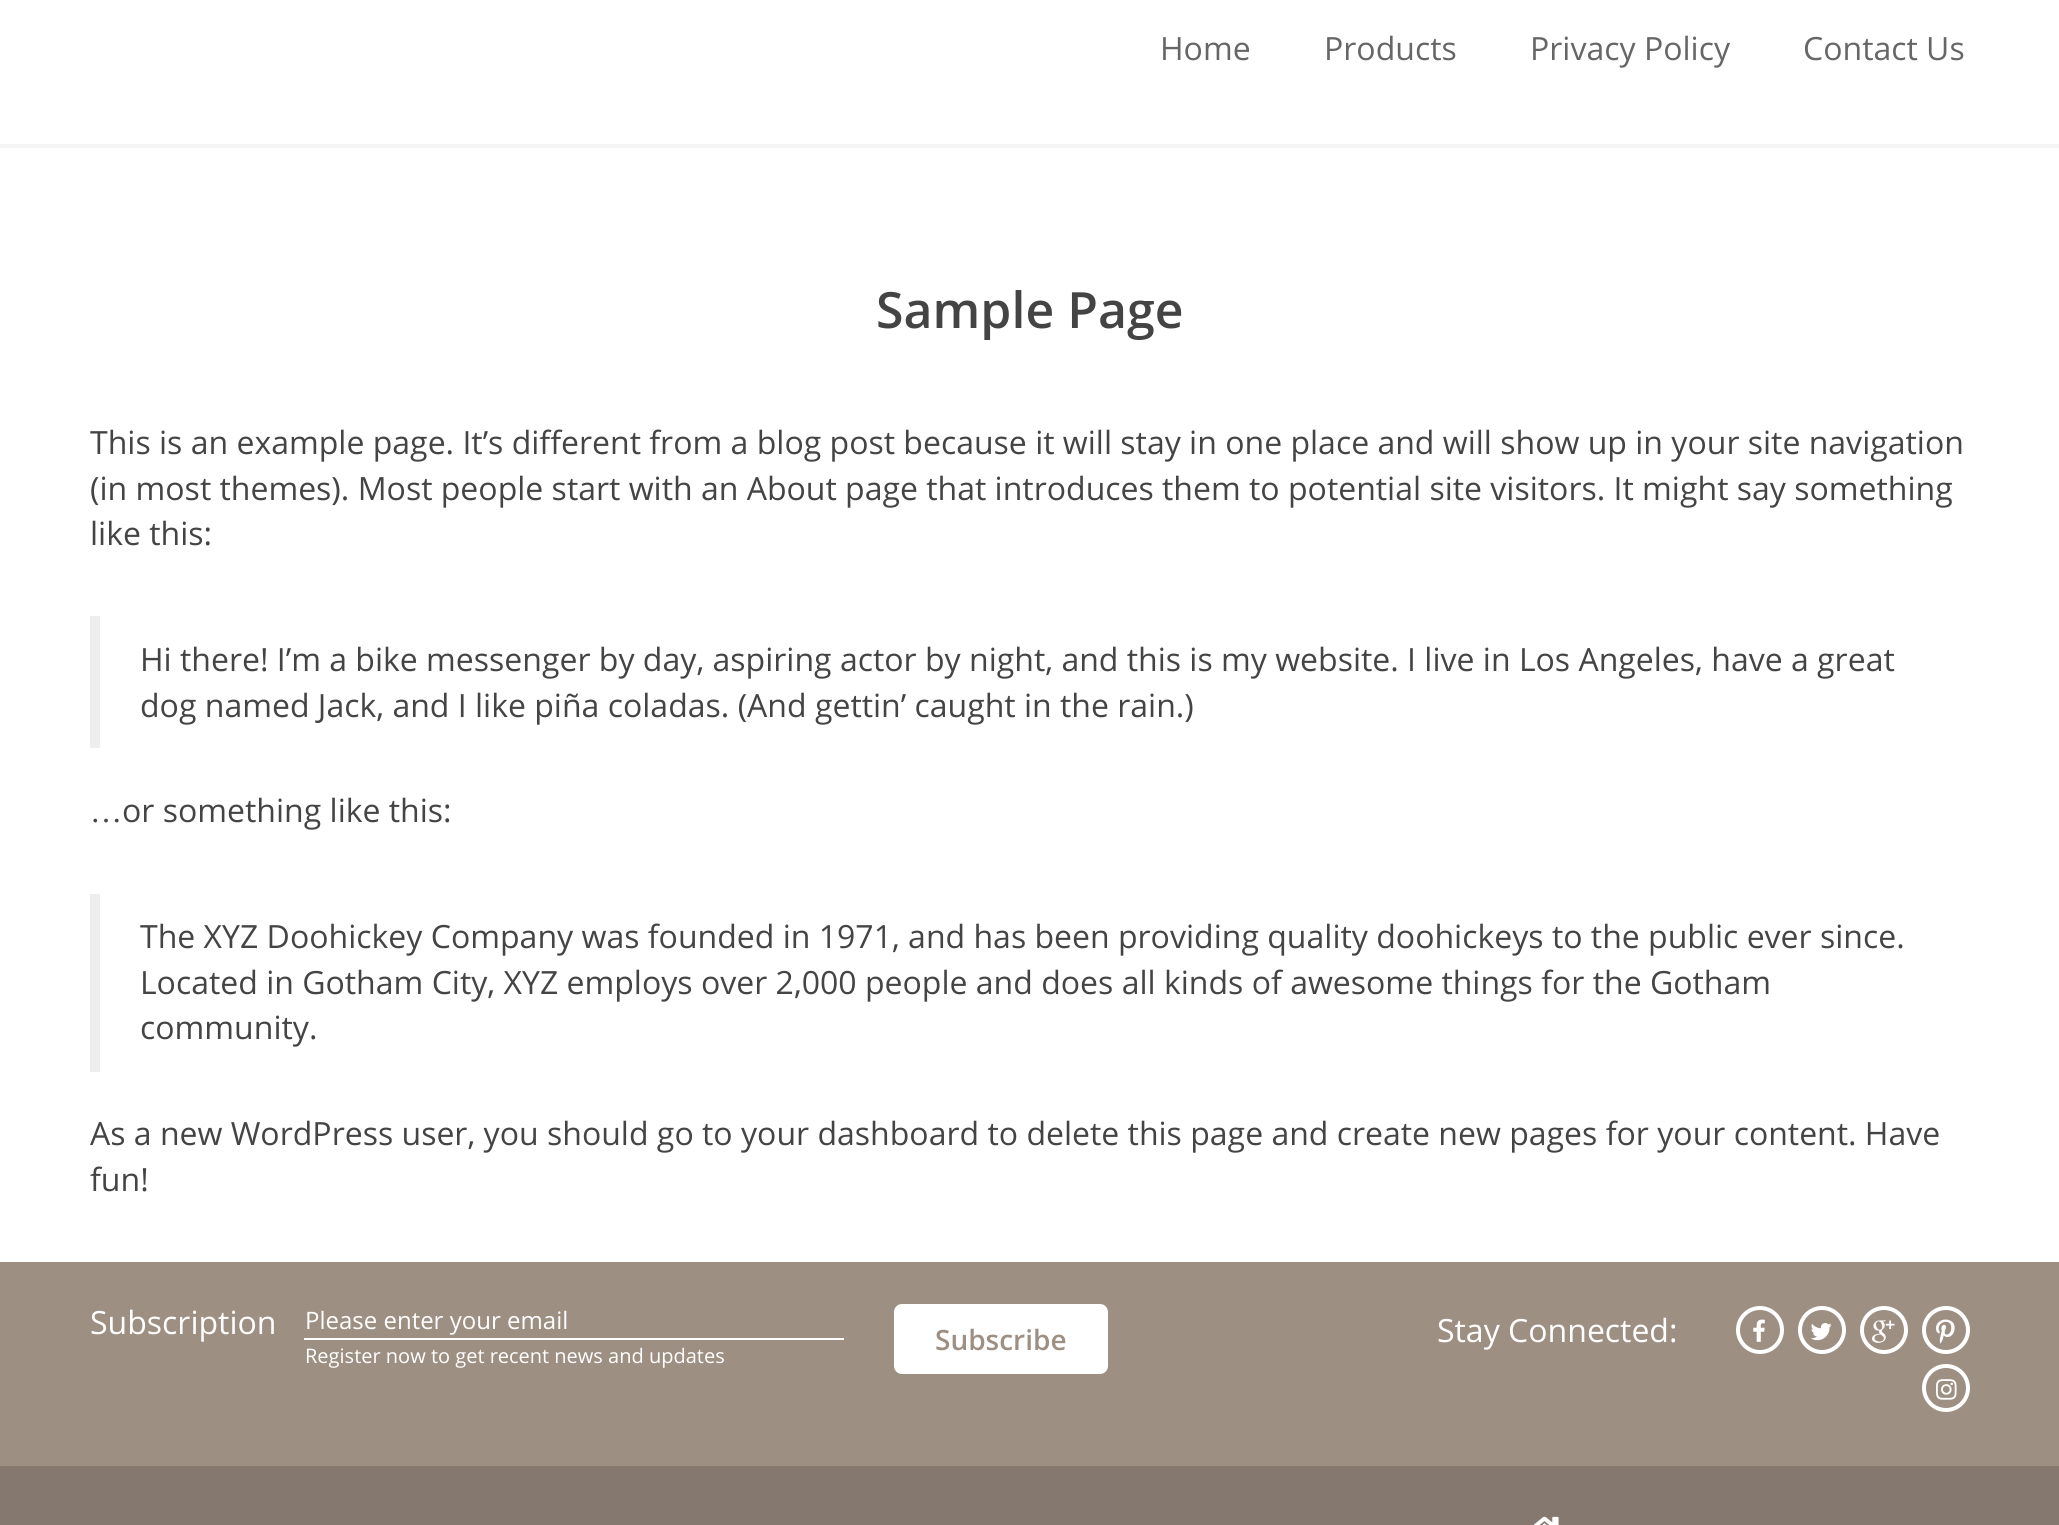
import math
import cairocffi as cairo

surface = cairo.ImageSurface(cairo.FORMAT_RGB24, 2059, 1525)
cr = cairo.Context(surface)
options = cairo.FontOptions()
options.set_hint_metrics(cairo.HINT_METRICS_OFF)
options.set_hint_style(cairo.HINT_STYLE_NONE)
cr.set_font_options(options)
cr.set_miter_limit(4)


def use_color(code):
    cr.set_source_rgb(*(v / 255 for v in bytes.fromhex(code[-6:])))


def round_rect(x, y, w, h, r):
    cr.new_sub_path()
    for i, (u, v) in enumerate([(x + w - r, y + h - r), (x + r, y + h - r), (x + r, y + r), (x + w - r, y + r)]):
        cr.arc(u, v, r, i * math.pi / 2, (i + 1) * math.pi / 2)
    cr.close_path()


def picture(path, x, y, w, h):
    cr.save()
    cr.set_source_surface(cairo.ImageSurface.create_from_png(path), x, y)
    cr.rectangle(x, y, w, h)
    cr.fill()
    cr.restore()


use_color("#ffffff")
cr.paint()
use_color("#f5f5f5")
cr.rectangle(0, 144, 2059, 4)
cr.fill()
cr.select_font_face("Open Sans")
cr.set_font_size(32)
use_color("#666666")
cr.move_to(1160, 60)
cr.show_text("Home")
cr.move_to(1324, 60)
cr.show_text("Products")
cr.move_to(1530, 60)
cr.show_text("Privacy Policy")
cr.move_to(1803, 60)
cr.show_text("Contact Us")
cr.select_font_face("Open Sans SemiBold")
cr.set_font_size(50)
use_color("#444444")
cr.move_to(876, 328)
cr.show_text("Sample Page")
cr.select_font_face("Open Sans")
cr.set_font_size(32)
cr.move_to(90, 454)
cr.show_text("This is an example page. It’s different from a blog post because it will stay in one place and will show up in your site navigation")
cr.move_to(90, 500)
cr.show_text("(in most themes). Most people start with an About page that introduces them to potential site visitors. It might say something")
cr.move_to(90, 545)
cr.show_text("like this:")
use_color("#eeeeee")
cr.rectangle(90, 616, 10, 132)
cr.fill()
use_color("#444444")
cr.move_to(140, 671)
cr.show_text("Hi there! I’m a bike messenger by day, aspiring actor by night, and this is my website. I live in Los Angeles, have a great")
cr.move_to(140, 717)
cr.show_text("dog named Jack, and I like piña coladas. (And gettin’ caught in the rain.)")
cr.select_font_face("Liberation Serif")
cr.move_to(90, 822)
cr.show_text("…")
cr.select_font_face("Open Sans")
cr.move_to(122, 822)
cr.show_text("or something like this:")
use_color("#eeeeee")
cr.rectangle(90, 894, 10, 178)
cr.fill()
use_color("#444444")
cr.move_to(140, 948)
cr.show_text("The XYZ Doohickey Company was founded in 1971, and has been providing quality doohickeys to the public ever since.")
cr.move_to(140, 994)
cr.show_text("Located in Gotham City, XYZ employs over 2,000 people and does all kinds of awesome things for the Gotham")
cr.move_to(140, 1039)
cr.show_text("community.")
cr.move_to(90, 1145)
cr.show_text("As a new WordPress user, you should go to your dashboard to delete this page and create new pages for your content. Have")
cr.move_to(90, 1191)
cr.show_text("fun!")
use_color("#9e8f83")
cr.rectangle(0, 1262, 2059, 204)
cr.fill()
use_color("#ffffff")
cr.move_to(90, 1334)
cr.show_text("Subscription")
cr.set_font_size(24)
cr.move_to(305, 1329)
cr.show_text("Please enter your email")
cr.rectangle(304, 1338, 540, 2)
cr.fill()
cr.set_font_size(20)
cr.move_to(305, 1363)
cr.show_text("Register now to get recent news and updates")
round_rect(894, 1304, 214, 70, 8)
cr.fill()
cr.select_font_face("Open Sans SemiBold")
cr.set_font_size(28)
use_color("#9e8f83")
cr.move_to(935, 1350)
cr.show_text("Subscribe")
cr.select_font_face("Open Sans")
cr.set_font_size(32)
use_color("#ffffff")
cr.move_to(1437, 1342)
cr.show_text("Stay Connected:")
cr.new_path()
cr.arc(1760, 1330, 22, 0, 2 * math.pi)
cr.set_line_width(4)
cr.stroke()
picture("img1.png", 1753, 1319, 12, 23)
cr.arc(1822, 1330, 22, 0, 2 * math.pi)
cr.stroke()
picture("img2.png", 1810, 1323, 22, 18)
cr.arc(1884, 1330, 22, 0, 2 * math.pi)
cr.stroke()
picture("img3.png", 1872, 1320, 23, 23)
cr.arc(1946, 1330, 22, 0, 2 * math.pi)
cr.stroke()
picture("img4.png", 1936, 1319, 19, 25)
cr.arc(1946, 1388, 22, 0, 2 * math.pi)
cr.stroke()
picture("img5.png", 1936, 1379, 21, 21)
use_color("#84786f")
cr.rectangle(0, 1466, 2059, 59)
cr.fill()
picture("img6.png", 1533, 1516, 26, 9)
surface.write_to_png("result.png")
